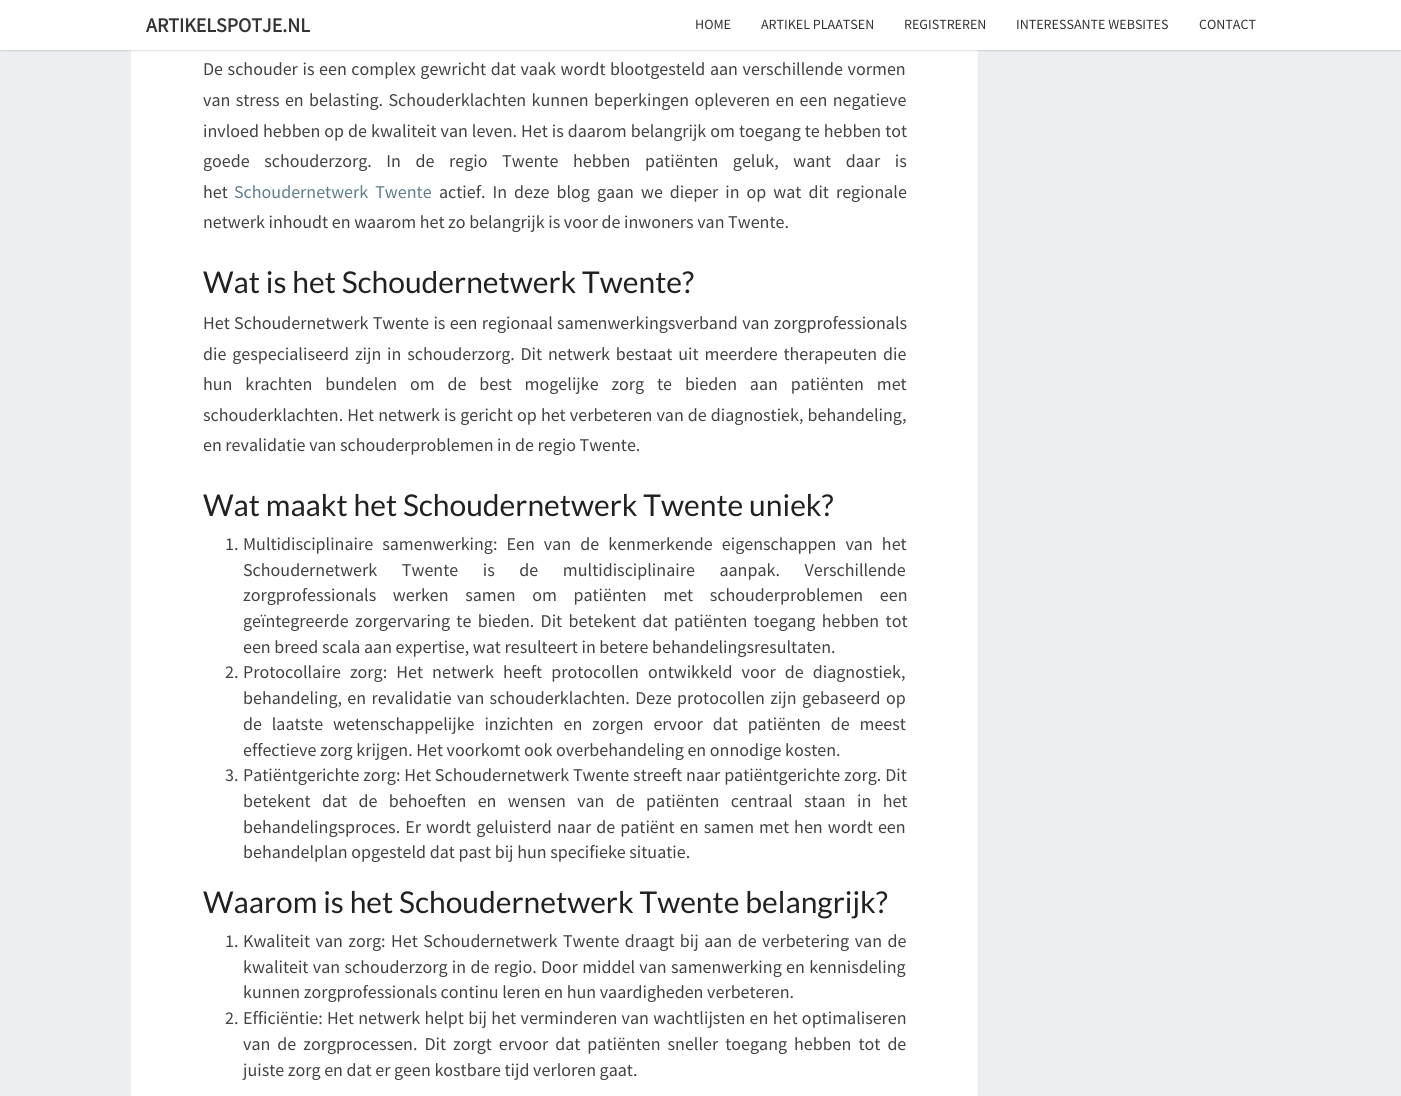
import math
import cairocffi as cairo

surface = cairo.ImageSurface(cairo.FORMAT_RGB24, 1401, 1096)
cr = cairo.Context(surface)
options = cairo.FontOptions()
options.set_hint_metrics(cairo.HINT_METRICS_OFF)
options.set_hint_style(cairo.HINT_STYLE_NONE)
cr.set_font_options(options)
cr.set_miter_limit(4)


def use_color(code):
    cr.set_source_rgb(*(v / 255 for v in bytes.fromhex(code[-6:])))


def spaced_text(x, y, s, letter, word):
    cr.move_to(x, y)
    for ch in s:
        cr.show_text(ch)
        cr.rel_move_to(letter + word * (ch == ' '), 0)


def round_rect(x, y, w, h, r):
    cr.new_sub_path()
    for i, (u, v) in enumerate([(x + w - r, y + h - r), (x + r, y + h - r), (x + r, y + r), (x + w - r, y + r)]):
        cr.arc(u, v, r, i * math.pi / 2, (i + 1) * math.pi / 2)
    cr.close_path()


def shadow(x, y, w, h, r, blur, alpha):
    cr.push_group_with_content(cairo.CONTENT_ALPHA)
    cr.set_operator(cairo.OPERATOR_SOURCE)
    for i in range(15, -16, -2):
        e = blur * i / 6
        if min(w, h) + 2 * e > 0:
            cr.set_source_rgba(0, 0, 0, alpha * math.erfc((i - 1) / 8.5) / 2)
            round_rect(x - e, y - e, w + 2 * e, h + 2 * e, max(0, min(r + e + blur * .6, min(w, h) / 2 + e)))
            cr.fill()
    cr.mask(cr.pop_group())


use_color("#eceff1")
cr.paint()
use_color("#ffffff")
cr.rectangle(131, 50, 847, 1046)
cr.fill()
use_color("#646464")
shadow(0, 1, 1401, 50, 0, 0.5, 0.2)
use_color("#ffffff")
cr.rectangle(0, 0, 1401, 50)
cr.fill()
cr.select_font_face("Source Sans Pro", cairo.FONT_SLANT_NORMAL, cairo.FONT_WEIGHT_BOLD)
cr.set_font_size(20)
use_color("#333333")
cr.move_to(146, 32)
cr.show_text("ARTIKELSPOTJE.NL")
cr.select_font_face("Source Sans Pro")
cr.set_font_size(14)
cr.move_to(695, 29)
cr.show_text("HOME")
cr.move_to(761, 29)
cr.show_text("ARTIKEL PLAATSEN")
cr.move_to(904, 29)
cr.show_text("REGISTREREN")
cr.move_to(1016, 29)
cr.show_text("INTERESSANTE WEBSITES")
cr.move_to(1199, 29)
cr.show_text("CONTACT")
cr.set_font_size(18)
use_color("#424242")
spaced_text(203, 75, "De schouder is een complex gewricht dat vaak wordt blootgesteld aan verschillende vormen", 0, 1)
spaced_text(203, 106, "van stress en belasting. Schouderklachten kunnen beperkingen opleveren en een negatieve", 0, 1.75)
spaced_text(203, 137, "invloed hebben op de kwaliteit van leven. Het is daarom belangrijk om toegang te hebben tot", 0, 0.4)
spaced_text(203, 167, "goede schouderzorg. In de regio Twente hebben patiënten geluk, want daar is", 0, 11)
cr.move_to(203, 198)
cr.show_text("het")
use_color("#607d8b")
spaced_text(234, 198, "Schoudernetwerk Twente", 0, 3.4)
use_color("#424242")
spaced_text(439, 198, "actief. In deze blog gaan we dieper in op wat dit regionale", 0, 3.4)
cr.move_to(203, 228)
cr.show_text("netwerk inhoudt en waarom het zo belangrijk is voor de inwoners van Twente.")
cr.select_font_face("Lato")
cr.set_font_size(30)
use_color("#212121")
cr.move_to(203, 293)
cr.show_text("Wat is het Schoudernetwerk Twente?")
cr.select_font_face("Source Sans Pro")
cr.set_font_size(18)
use_color("#424242")
spaced_text(203, 329, "Het Schoudernetwerk Twente is een regionaal samenwerkingsverband van zorgprofessionals", 0, 0.75)
spaced_text(203, 360, "die gespecialiseerd zijn in schouderzorg. Dit netwerk bestaat uit meerdere therapeuten die", 0, 2.25)
spaced_text(203, 390, "hun krachten bundelen om de best mogelijke zorg te bieden aan patiënten met", 0, 9.25)
spaced_text(203, 421, "schouderklachten. Het netwerk is gericht op het verbeteren van de diagnostiek, behandeling,", 0, 0.5)
cr.move_to(203, 451)
cr.show_text("en revalidatie van schouderproblemen in de regio Twente.")
cr.select_font_face("Lato")
cr.set_font_size(30)
use_color("#212121")
cr.move_to(203, 516)
cr.show_text("Wat maakt het Schoudernetwerk Twente uniek?")
cr.select_font_face("Source Sans Pro")
cr.set_font_size(18)
use_color("#424242")
cr.move_to(225, 550)
cr.show_text("1.")
spaced_text(243, 550, "Multidisciplinaire samenwerking: Een van de kenmerkende eigenschappen van het", 0, 5.5)
spaced_text(243, 576, "Schoudernetwerk Twente is de multidisciplinaire aanpak. Verschillende", 0, 21)
spaced_text(243, 601, "zorgprofessionals werken samen om patiënten met schouderproblemen een", 0, 13)
spaced_text(243, 627, "geïntegreerde zorgervaring te bieden. Dit betekent dat patiënten toegang hebben tot", 0, 2.75)
cr.move_to(243, 653)
cr.show_text("een breed scala aan expertise, wat resulteert in betere behandelingsresultaten.")
cr.move_to(225, 678)
cr.show_text("2.")
spaced_text(243, 678, "Protocollaire zorg: Het netwerk heeft protocollen ontwikkeld voor de diagnostiek,", 0, 5.5)
spaced_text(243, 704, "behandeling, en revalidatie van schouderklachten. Deze protocollen zijn gebaseerd op", 0, 1.75)
spaced_text(243, 730, "de laatste wetenschappelijke inzichten en zorgen ervoor dat patiënten de meest", 0, 6.25)
cr.move_to(243, 756)
cr.show_text("effectieve zorg krijgen. Het voorkomt ook overbehandeling en onnodige kosten.")
cr.move_to(225, 781)
cr.show_text("3.")
spaced_text(243, 781, "Patiëntgerichte zorg: Het Schoudernetwerk Twente streeft naar patiëntgerichte zorg. Dit", 0, 0.25)
spaced_text(243, 807, "betekent dat de behoeften en wensen van de patiënten centraal staan in het", 0, 7.75)
spaced_text(243, 833, "behandelingsproces. Er wordt geluisterd naar de patiënt en samen met hen wordt een", 0, 1.5)
cr.move_to(243, 858)
cr.show_text("behandelplan opgesteld dat past bij hun specifieke situatie.")
cr.select_font_face("Lato")
cr.set_font_size(30)
use_color("#212121")
cr.move_to(203, 913)
cr.show_text("Waarom is het Schoudernetwerk Twente belangrijk?")
cr.select_font_face("Source Sans Pro")
cr.set_font_size(18)
use_color("#424242")
cr.move_to(225, 947)
cr.show_text("1.")
spaced_text(243, 947, "Kwaliteit van zorg: Het Schoudernetwerk Twente draagt bij aan de verbetering van de", 0, 1.9)
spaced_text(243, 973, "kwaliteit van schouderzorg in de regio. Door middel van samenwerking en kennisdeling", 0, 0.75)
cr.move_to(243, 998)
cr.show_text("kunnen zorgprofessionals continu leren en hun vaardigheden verbeteren.")
cr.move_to(225, 1024)
cr.show_text("2.")
spaced_text(243, 1024, "Efficiëntie: Het netwerk helpt bij het verminderen van wachtlijsten en het optimaliseren", 0, 0.75)
spaced_text(243, 1050, "van de zorgprocessen. Dit zorgt ervoor dat patiënten sneller toegang hebben tot de", 0, 3.4)
cr.move_to(243, 1076)
cr.show_text("juiste zorg en dat er geen kostbare tijd verloren gaat.")
surface.write_to_png("result.png")
